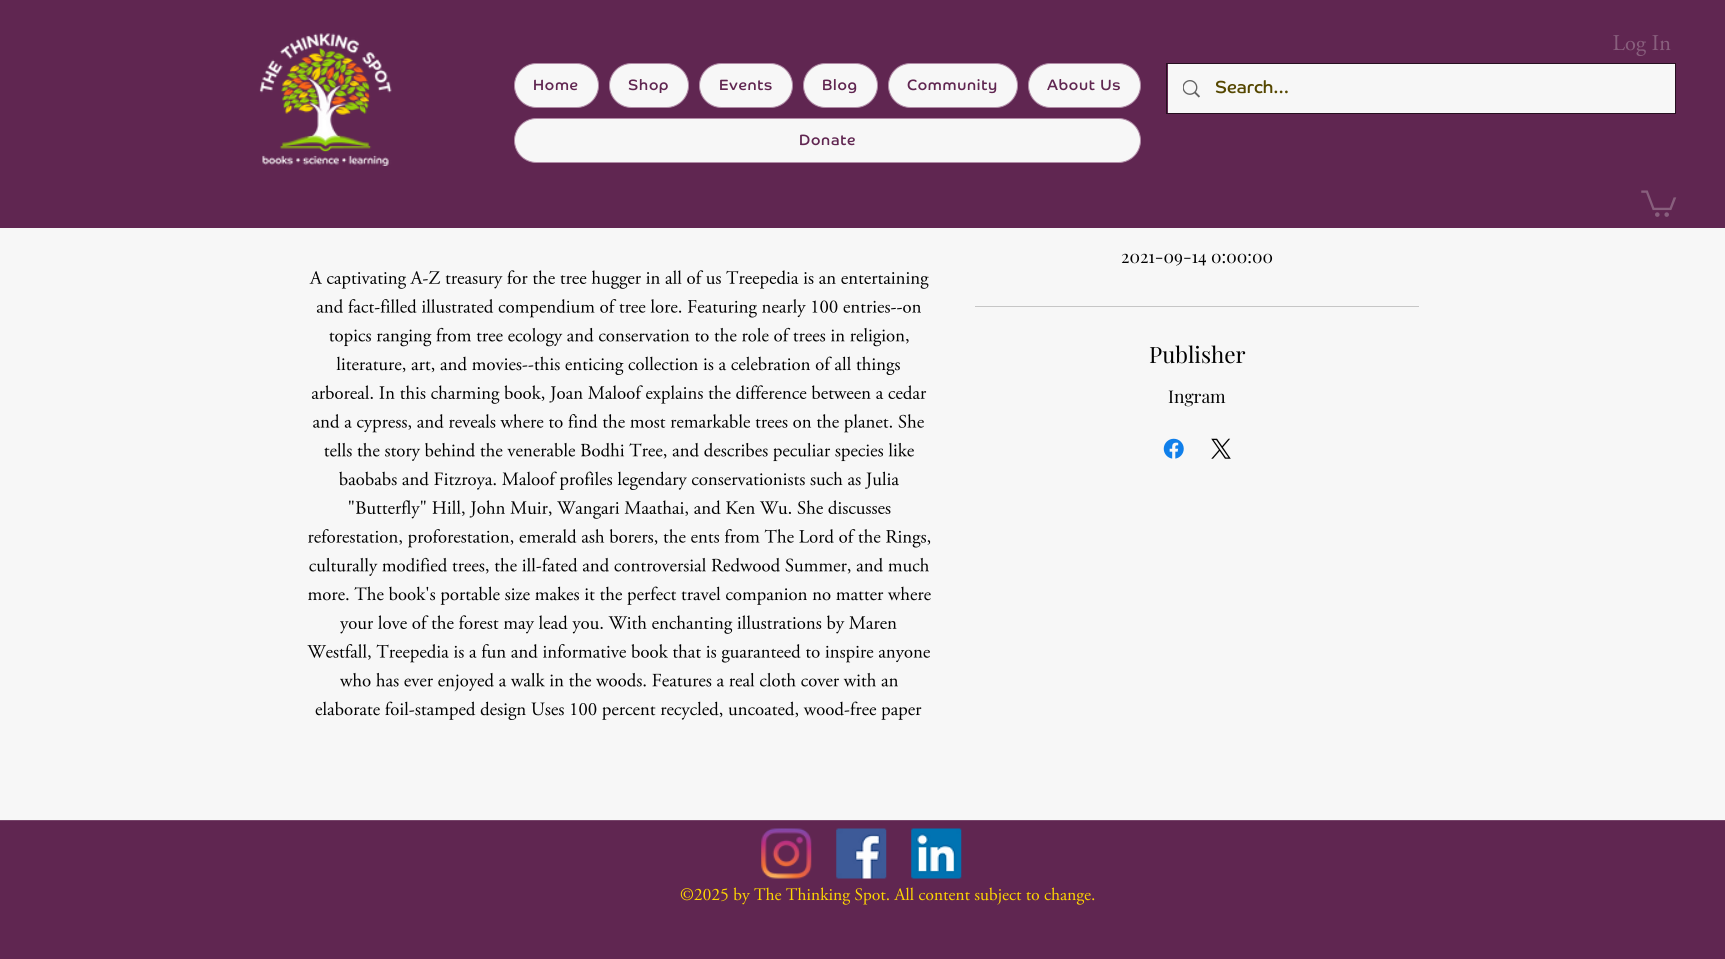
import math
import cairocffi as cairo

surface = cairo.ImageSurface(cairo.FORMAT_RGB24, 1725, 959)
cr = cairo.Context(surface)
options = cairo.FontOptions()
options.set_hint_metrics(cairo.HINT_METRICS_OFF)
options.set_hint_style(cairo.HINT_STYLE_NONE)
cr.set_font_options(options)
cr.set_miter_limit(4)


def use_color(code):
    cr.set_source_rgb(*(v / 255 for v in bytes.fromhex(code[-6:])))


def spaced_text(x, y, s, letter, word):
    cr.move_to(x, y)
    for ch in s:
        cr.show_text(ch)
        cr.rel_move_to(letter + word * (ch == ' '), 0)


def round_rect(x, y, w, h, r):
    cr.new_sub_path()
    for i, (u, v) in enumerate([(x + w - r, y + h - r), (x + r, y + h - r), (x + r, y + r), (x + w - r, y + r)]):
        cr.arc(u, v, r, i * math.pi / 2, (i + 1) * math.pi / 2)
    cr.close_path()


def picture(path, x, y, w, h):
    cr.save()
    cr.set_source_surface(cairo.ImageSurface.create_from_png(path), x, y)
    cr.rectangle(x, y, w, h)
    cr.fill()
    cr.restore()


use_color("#f7f7f7")
cr.paint()
use_color("#602651")
cr.rectangle(0, 0, 1725, 228)
cr.fill()
picture("img1.png", 259, 33, 133, 133)
picture("img2.png", 1613, 35, 58, 21)
use_color("#f7f7f7")
round_rect(514.5, 63.5, 84, 44, 22)
cr.fill_preserve()
use_color("#b08ca6")
cr.set_line_width(1)
cr.stroke()
cr.select_font_face("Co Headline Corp")
cr.set_font_size(15)
use_color("#602651")
spaced_text(533, 90, "Home", 0.75, 0)
use_color("#f7f7f7")
round_rect(609.5, 63.5, 79, 44, 22)
cr.fill_preserve()
use_color("#b08ca6")
cr.stroke()
use_color("#602651")
spaced_text(628, 90, "Shop", 0.75, 0)
use_color("#f7f7f7")
round_rect(699.5, 63.5, 93, 44, 22)
cr.fill_preserve()
use_color("#b08ca6")
cr.stroke()
use_color("#602651")
spaced_text(719, 90, "Events", 0.75, 0)
use_color("#f7f7f7")
round_rect(803.5, 63.5, 74, 44, 22)
cr.fill_preserve()
use_color("#b08ca6")
cr.stroke()
use_color("#602651")
spaced_text(822, 90, "Blog", 0.75, 0)
use_color("#f7f7f7")
round_rect(888.5, 63.5, 129, 44, 22)
cr.fill_preserve()
use_color("#b08ca6")
cr.stroke()
use_color("#602651")
spaced_text(907, 90, "Community", 0.75, 0)
use_color("#f7f7f7")
round_rect(1028.5, 63.5, 112, 44, 22)
cr.fill_preserve()
use_color("#b08ca6")
cr.stroke()
use_color("#602651")
spaced_text(1047, 90, "About Us", 0.75, 0)
use_color("#f7f7f7")
round_rect(514.5, 118.5, 626, 44, 22)
cr.fill_preserve()
use_color("#b08ca6")
cr.stroke()
use_color("#602651")
spaced_text(799, 145, "Donate", 0.75, 0)
cr.rectangle(1166.5, 63.5, 509, 50)
use_color("#260f20")
cr.stroke()
use_color("#f7f7f7")
cr.rectangle(1168, 64, 507, 49)
cr.fill()
picture("img3.png", 1183, 80, 17, 18)
cr.set_font_size(17.5)
use_color("#554700")
cr.move_to(1215, 93)
cr.show_text("Search...")
picture("img4.png", 1641, 190, 36, 27)
picture("img5.png", 309, 270, 620, 19)
picture("img6.png", 316, 299, 605, 19)
picture("img7.png", 329, 327, 580, 20)
picture("img8.png", 336, 356, 564, 19)
picture("img9.png", 311, 385, 616, 19)
picture("img10.png", 313, 414, 611, 19)
picture("img11.png", 324, 442, 590, 20)
picture("img12.png", 339, 471, 560, 19)
picture("img13.png", 349, 500, 542, 19)
picture("img14.png", 308, 529, 623, 19)
picture("img15.png", 309, 557, 620, 19)
picture("img16.png", 308, 586, 623, 19)
picture("img17.png", 340, 615, 557, 19)
picture("img18.png", 307, 644, 623, 19)
picture("img19.png", 340, 672, 558, 20)
picture("img20.png", 315, 701, 607, 19)
use_color("#c6c6c6")
cr.rectangle(975, 306, 444, 1)
cr.fill()
cr.select_font_face("Playfair Display")
use_color("#000000")
cr.move_to(1121, 263)
cr.show_text("2021-09-14 0:00:00")
cr.set_font_size(22.5)
cr.move_to(1149, 363)
cr.show_text("Publisher")
cr.set_font_size(17.5)
cr.move_to(1168, 403)
cr.show_text("Ingram")
picture("img21.png", 1163, 438, 21, 21)
picture("img22.png", 1211, 438, 20, 21)
use_color("#602651")
cr.rectangle(0, 821, 1725, 138)
cr.fill()
use_color("#77456a")
cr.rectangle(0, 820, 1725, 1)
cr.fill()
picture("img23.png", 761, 828, 51, 51)
picture("img24.png", 836, 828, 51, 51)
picture("img25.png", 911, 828, 51, 51)
picture("img26.png", 680, 887, 415, 18)
surface.write_to_png("result.png")
